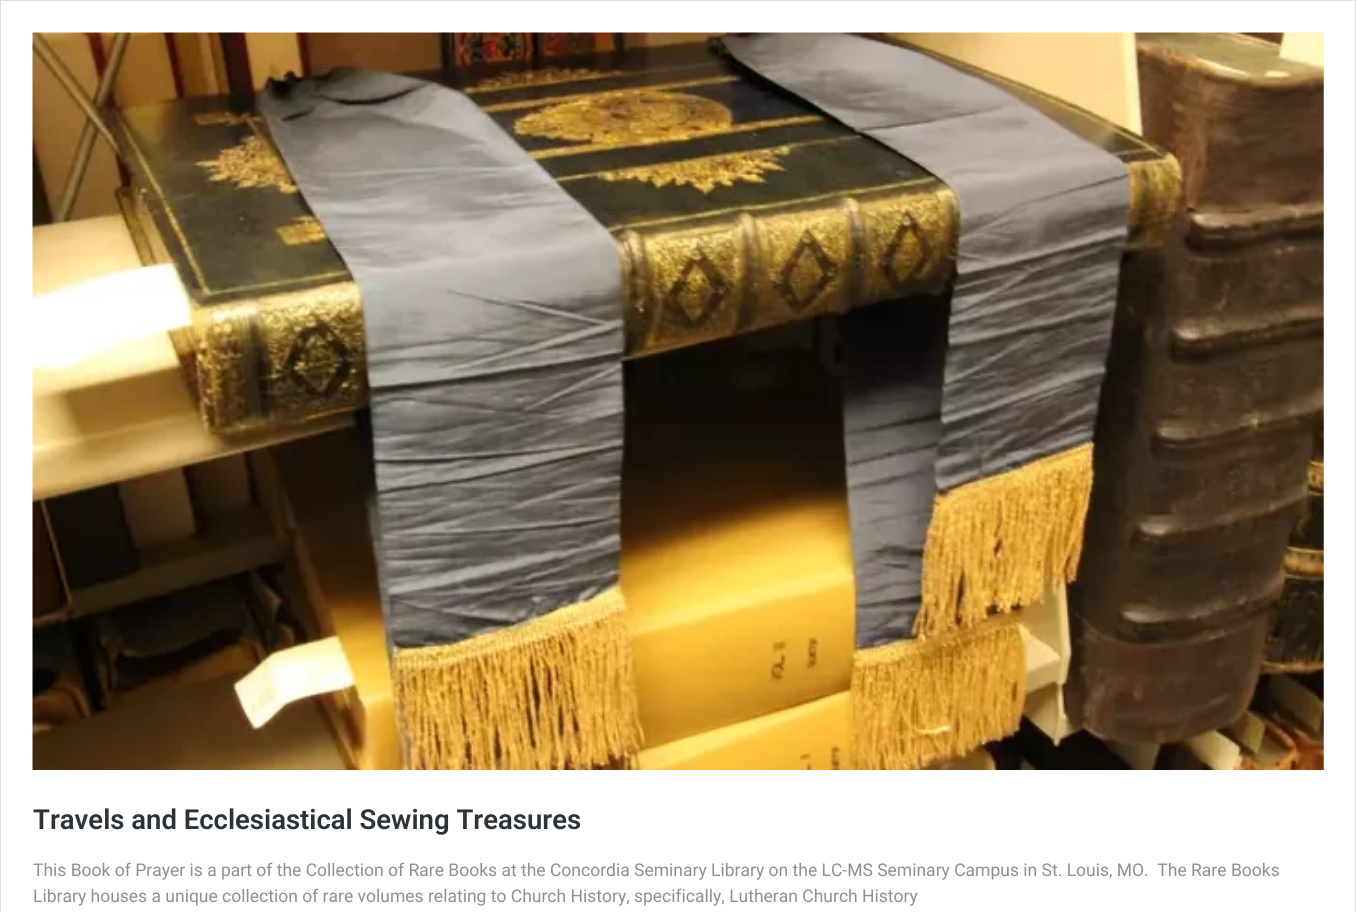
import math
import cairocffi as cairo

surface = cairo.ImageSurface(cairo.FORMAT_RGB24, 1356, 912)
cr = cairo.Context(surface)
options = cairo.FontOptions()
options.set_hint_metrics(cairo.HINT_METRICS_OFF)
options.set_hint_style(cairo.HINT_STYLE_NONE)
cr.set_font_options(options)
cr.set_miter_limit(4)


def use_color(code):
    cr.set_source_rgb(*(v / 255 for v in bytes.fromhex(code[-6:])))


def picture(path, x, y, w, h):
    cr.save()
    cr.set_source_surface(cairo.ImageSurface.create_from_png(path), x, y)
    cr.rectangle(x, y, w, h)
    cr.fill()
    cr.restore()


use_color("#ffffff")
cr.paint()
cr.rectangle(0.5, 0.5, 1355, 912)
use_color("#dcdcde")
cr.set_line_width(1)
cr.stroke()
picture("img1.png", 32, 32, 1292, 738)
cr.select_font_face("Roboto SemiBold")
cr.set_font_size(27.5)
use_color("#2c3338")
cr.move_to(33, 829)
cr.show_text("Travels and Ecclesiastical Sewing Treasures")
cr.select_font_face("Roboto")
cr.set_font_size(17.5)
use_color("#8c8f94")
cr.move_to(33, 876)
cr.show_text("This Book of Prayer is a part of the Collection of Rare Books at the Concordia Seminary Library on the LC-MS Seminary Campus in St. Louis, MO.  The Rare Books")
cr.move_to(33, 902)
cr.show_text("Library houses a unique collection of rare volumes relating to Church History, specifically, Lutheran Church History")
surface.write_to_png("result.png")
